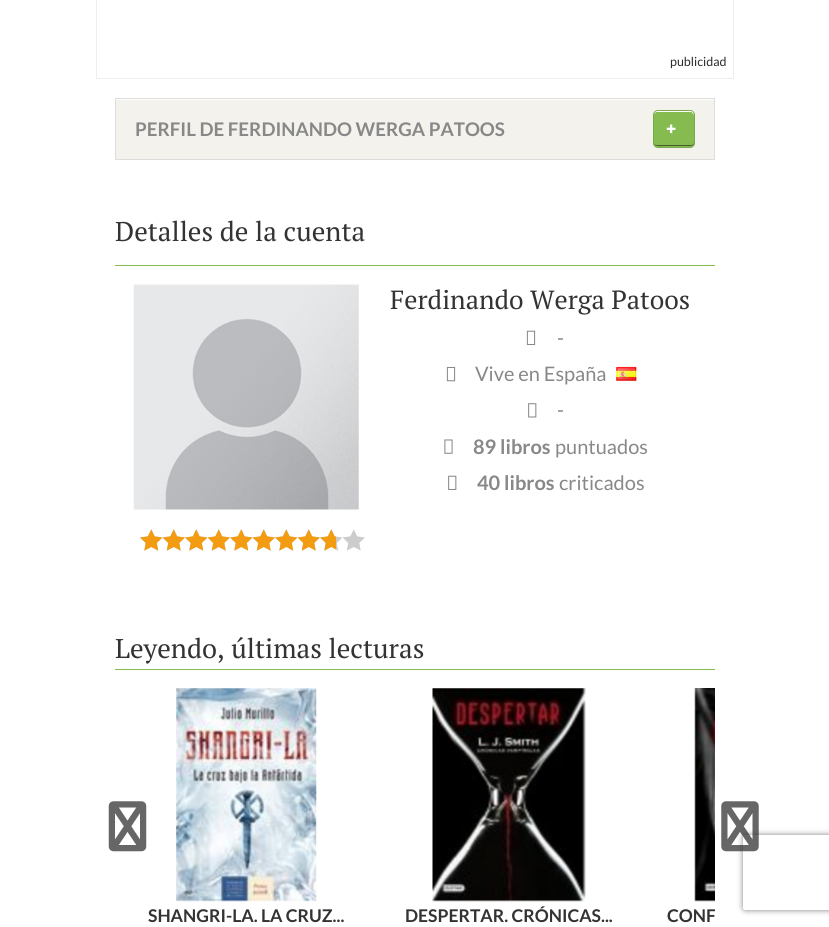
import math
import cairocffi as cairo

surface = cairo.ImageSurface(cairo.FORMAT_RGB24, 829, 927)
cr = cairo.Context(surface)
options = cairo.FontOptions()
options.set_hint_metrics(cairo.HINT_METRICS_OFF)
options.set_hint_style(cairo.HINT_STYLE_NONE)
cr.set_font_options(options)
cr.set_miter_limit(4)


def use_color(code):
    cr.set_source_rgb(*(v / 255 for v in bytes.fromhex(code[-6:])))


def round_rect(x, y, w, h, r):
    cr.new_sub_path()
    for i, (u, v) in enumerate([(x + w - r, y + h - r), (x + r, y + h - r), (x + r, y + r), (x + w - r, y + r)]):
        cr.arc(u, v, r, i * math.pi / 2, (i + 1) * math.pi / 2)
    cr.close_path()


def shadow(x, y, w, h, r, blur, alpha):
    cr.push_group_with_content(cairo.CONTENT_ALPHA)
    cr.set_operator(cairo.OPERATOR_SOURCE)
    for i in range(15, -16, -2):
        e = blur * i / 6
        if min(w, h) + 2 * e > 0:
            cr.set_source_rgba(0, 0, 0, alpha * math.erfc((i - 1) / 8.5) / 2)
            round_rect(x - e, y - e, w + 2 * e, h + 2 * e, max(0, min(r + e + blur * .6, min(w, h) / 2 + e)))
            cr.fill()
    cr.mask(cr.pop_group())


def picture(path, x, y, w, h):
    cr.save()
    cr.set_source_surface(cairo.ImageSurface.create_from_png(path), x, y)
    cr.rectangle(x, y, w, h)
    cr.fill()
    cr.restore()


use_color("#ffffff")
cr.paint()
cr.rectangle(96.5, -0.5, 637, 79)
use_color("#eeeeee")
cr.set_line_width(1)
cr.stroke()
cr.select_font_face("Lato")
cr.set_font_size(12.5)
use_color("#292b2c")
cr.move_to(670, 66)
cr.show_text("publicidad")
use_color("#f3f2ed")
cr.rectangle(116, 100, 598, 59)
cr.fill()
cr.rectangle(115.5, 98.5, 599, 61)
use_color("#dddddd")
cr.stroke()
cr.select_font_face("Lato", cairo.FONT_SLANT_NORMAL, cairo.FONT_WEIGHT_BOLD)
cr.set_font_size(18.75)
use_color("#888888")
cr.move_to(135, 136)
cr.show_text("PERFIL DE FERDINANDO WERGA PATOOS")
use_color("#86bb50")
round_rect(653, 110, 42, 38, 5)
cr.fill()
use_color("#ffffff")
cr.new_path()
cr.move_to(657, 112)
cr.line_to(691, 112)
cr.curve_to(692, 112, 694, 114, 694, 116)
cr.curve_to(694, 110, 691, 111, 685, 111)
cr.line_to(663, 111)
cr.curve_to(657, 111, 654, 110, 654, 116)
cr.curve_to(654, 114, 655, 112, 657, 112)
cr.close_path()
cr.fill()
use_color("#435e28")
cr.new_path()
cr.move_to(654, 142)
cr.curve_to(654, 147, 659, 146, 663, 146)
cr.line_to(685, 146)
cr.curve_to(689, 146, 694, 147, 694, 142)
cr.curve_to(694, 144, 692, 145, 691, 145)
cr.line_to(657, 145)
cr.curve_to(655, 145, 654, 144, 654, 142)
cr.close_path()
cr.fill()
round_rect(653.5, 110.5, 41, 37, 4.5)
cr.set_source_rgba(0, 0, 0, 0.1)
cr.stroke()
cr.select_font_face("Noto Sans Black")
cr.set_font_size(17.5)
use_color("#ffffff")
cr.move_to(666, 135)
cr.show_text("+")
use_color("#86bb50")
cr.rectangle(115, 265, 600, 1)
cr.fill()
cr.select_font_face("PT Serif")
cr.set_font_size(27.1)
use_color("#333333")
cr.move_to(115, 241)
cr.show_text("Detalles de la cuenta")
picture("img1.png", 133, 284, 226, 226)
picture("img2.png", 140, 529, 23, 22)
picture("img3.png", 163, 529, 22, 22)
picture("img2.png", 185, 529, 23, 22)
picture("img3.png", 208, 529, 22, 22)
picture("img2.png", 230, 529, 23, 22)
picture("img3.png", 253, 529, 22, 22)
picture("img2.png", 275, 529, 23, 22)
picture("img3.png", 298, 529, 22, 22)
picture("img2.png", 320, 529, 23, 22)
picture("img3.png", 343, 529, 22, 22)
picture("img4.png", 140, 529, 23, 22)
picture("img5.png", 163, 529, 22, 22)
picture("img4.png", 185, 529, 23, 22)
picture("img5.png", 208, 529, 22, 22)
picture("img4.png", 230, 529, 23, 22)
picture("img5.png", 253, 529, 22, 22)
picture("img4.png", 275, 529, 23, 22)
picture("img5.png", 298, 529, 22, 22)
picture("img6.png", 320, 529, 16, 22)
cr.set_font_size(26.25)
cr.move_to(390, 309)
cr.show_text("Ferdinando Werga Patoos")
picture("img7.png", 526, 330, 10, 15)
cr.select_font_face("Lato")
cr.set_font_size(20)
use_color("#888888")
cr.move_to(557, 345)
cr.show_text("-")
picture("img8.png", 446, 367, 10, 15)
cr.move_to(475, 381)
cr.show_text("Vive en España")
picture("img9.png", 616, 366, 21, 15)
picture("img10.png", 528, 403, 9, 15)
cr.move_to(557, 417)
cr.show_text("-")
picture("img11.png", 444, 439, 9, 15)
cr.select_font_face("Lato", cairo.FONT_SLANT_NORMAL, cairo.FONT_WEIGHT_BOLD)
cr.move_to(473, 454)
cr.show_text("89 libros")
cr.select_font_face("Lato")
cr.move_to(555, 454)
cr.show_text("puntuados")
picture("img12.png", 448, 475, 9, 15)
cr.select_font_face("Lato", cairo.FONT_SLANT_NORMAL, cairo.FONT_WEIGHT_BOLD)
cr.move_to(477, 490)
cr.show_text("40 libros")
cr.select_font_face("Lato")
cr.move_to(559, 490)
cr.show_text("criticados")
use_color("#86bb50")
cr.rectangle(115, 669, 600, 1)
cr.fill()
cr.select_font_face("PT Serif")
cr.set_font_size(27.1)
use_color("#333333")
cr.move_to(115, 658)
cr.show_text("Leyendo, últimas lecturas")
picture("img13.png", 108, 801, 39, 51)
cr.save()
cr.set_fill_rule(cairo.FILL_RULE_EVEN_ODD)
cr.new_path()
cr.move_to(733, 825)
cr.line_to(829, 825)
cr.line_to(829, 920)
cr.line_to(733, 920)
cr.close_path()
cr.move_to(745.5, 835)
cr.line_to(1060.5, 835)
cr.curve_to(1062, 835, 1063, 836, 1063, 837.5)
cr.line_to(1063, 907.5)
cr.curve_to(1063, 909, 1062, 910, 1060.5, 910)
cr.line_to(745.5, 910)
cr.curve_to(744, 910, 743, 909, 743, 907.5)
cr.line_to(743, 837.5)
cr.curve_to(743, 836, 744, 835, 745.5, 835)
cr.close_path()
cr.clip()
use_color("#808080")
shadow(743, 835, 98, 75, 2.5, 3, 1)
cr.restore()
picture("img14.png", 721, 801, 38, 51)
picture("img15.png", 176, 688, 141, 214)
cr.select_font_face("Lato", cairo.FONT_SLANT_NORMAL, cairo.FONT_WEIGHT_BOLD)
cr.set_font_size(17.5)
cr.move_to(148, 922)
cr.show_text("SHANGRI-LA. LA CRUZ...")
picture("img16.png", 432, 688, 154, 214)
cr.move_to(405, 922)
cr.show_text("DESPERTAR. CRÓNICAS...")
picture("img17.png", 694, 688, 21, 214)
cr.save()
cr.rectangle(659, 901, 56, 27)
cr.clip()
cr.move_to(667, 922)
cr.show_text("CONF")
cr.restore()
surface.write_to_png("result.png")
